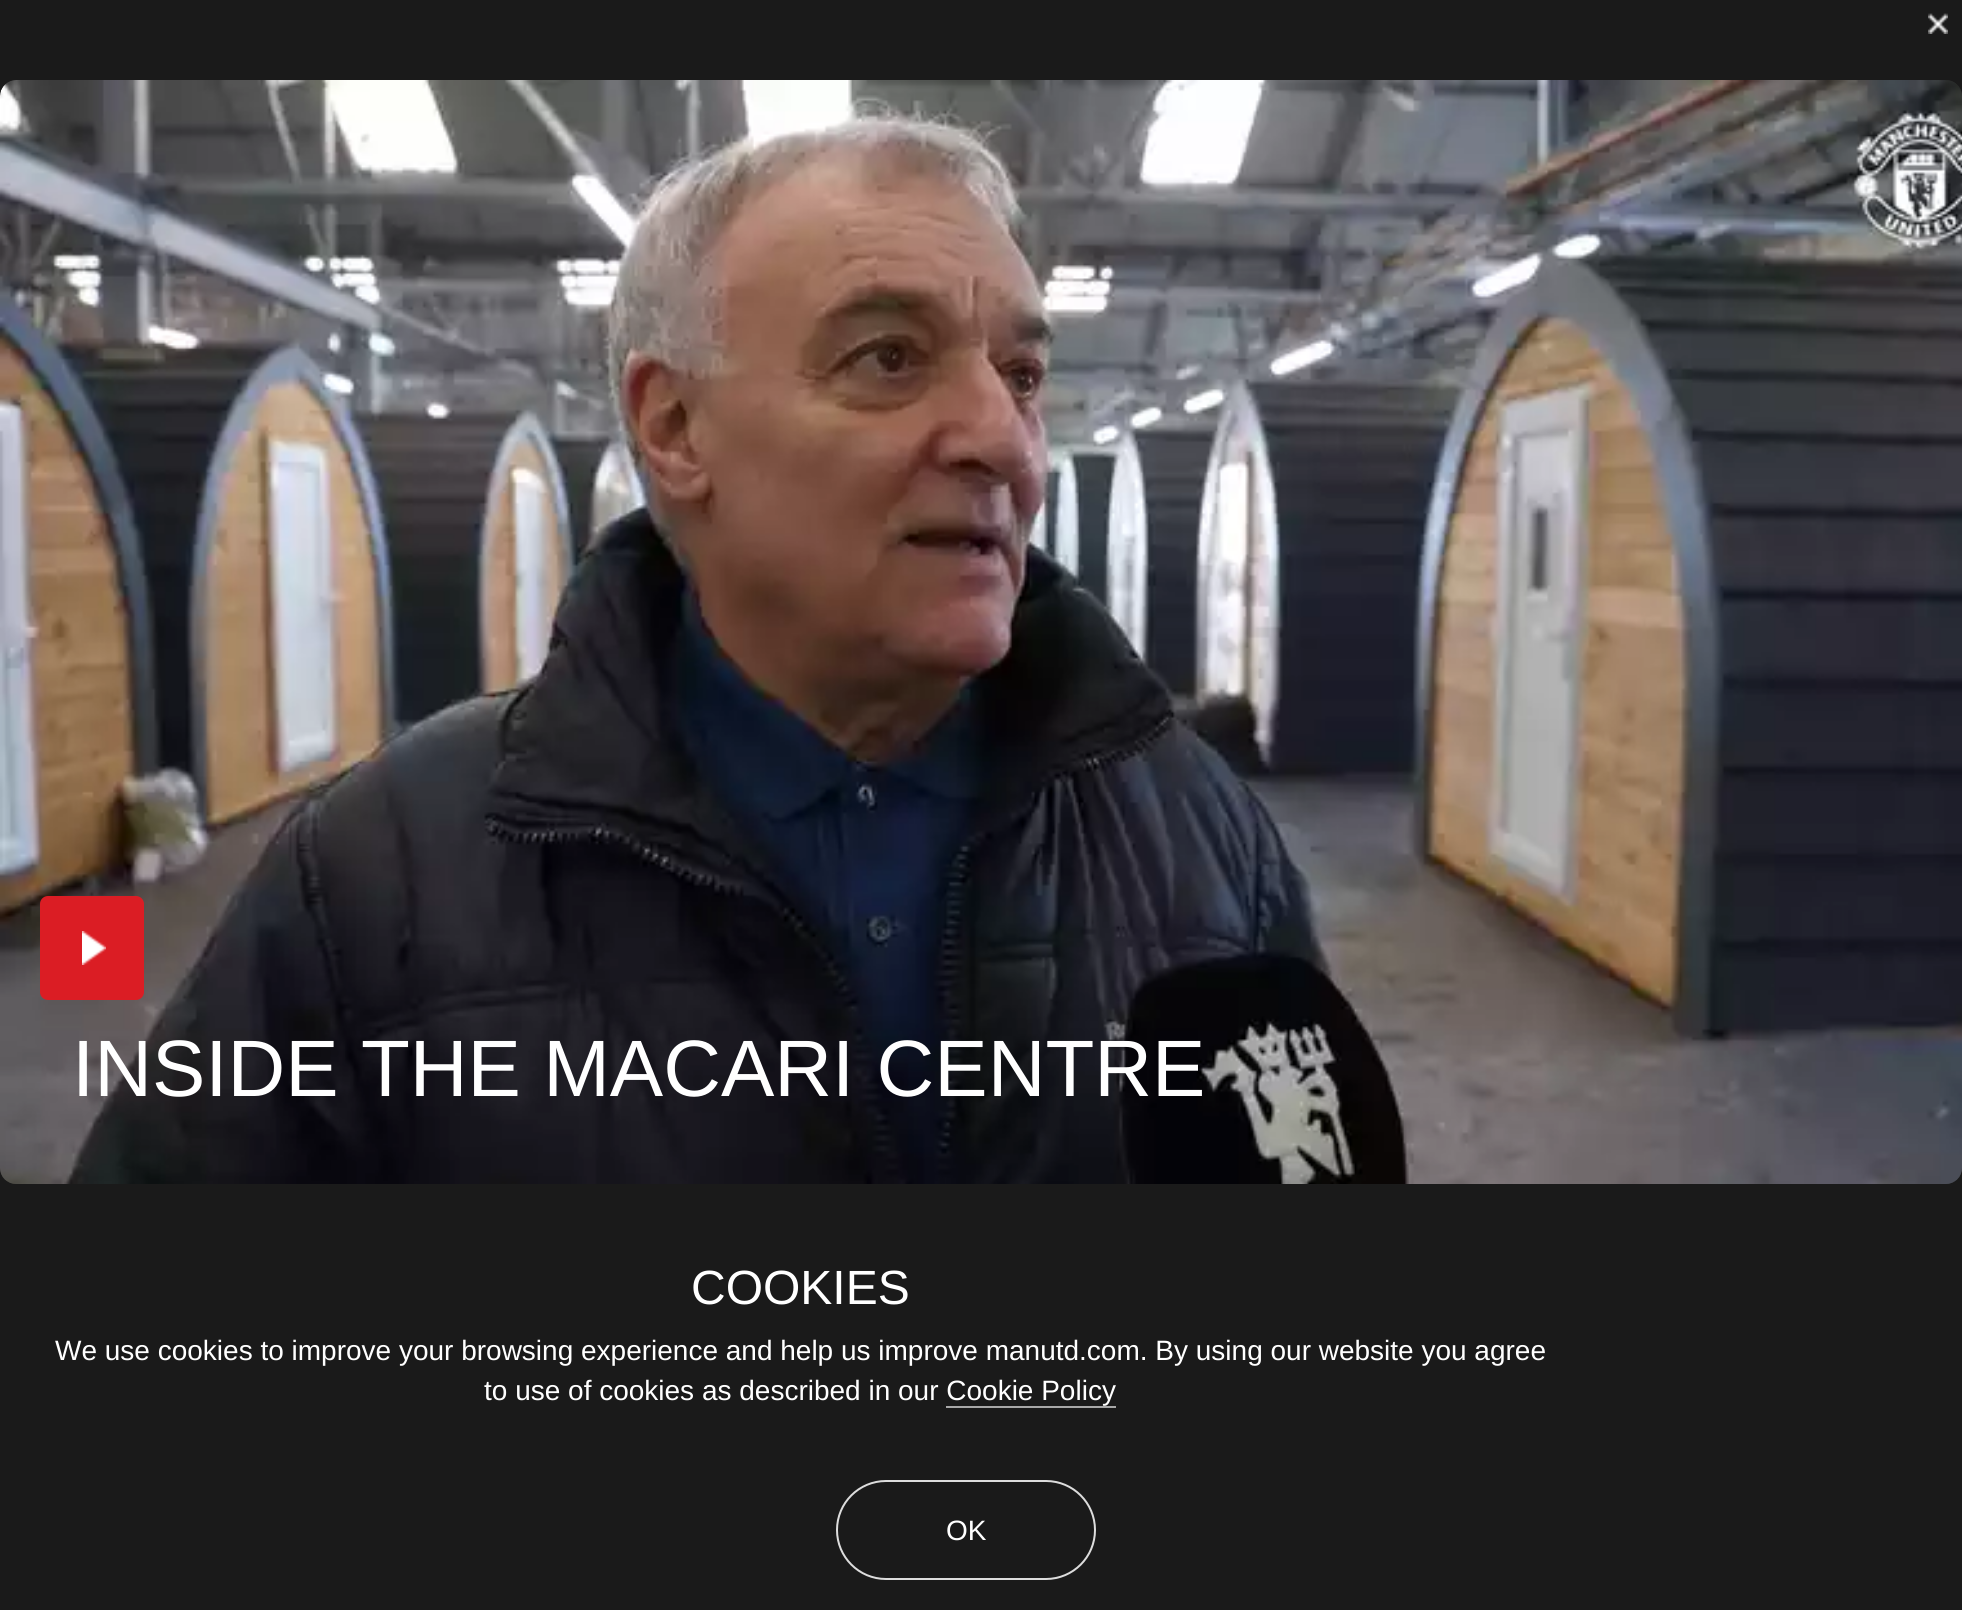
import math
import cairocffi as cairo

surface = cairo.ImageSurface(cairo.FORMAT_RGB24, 1962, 1610)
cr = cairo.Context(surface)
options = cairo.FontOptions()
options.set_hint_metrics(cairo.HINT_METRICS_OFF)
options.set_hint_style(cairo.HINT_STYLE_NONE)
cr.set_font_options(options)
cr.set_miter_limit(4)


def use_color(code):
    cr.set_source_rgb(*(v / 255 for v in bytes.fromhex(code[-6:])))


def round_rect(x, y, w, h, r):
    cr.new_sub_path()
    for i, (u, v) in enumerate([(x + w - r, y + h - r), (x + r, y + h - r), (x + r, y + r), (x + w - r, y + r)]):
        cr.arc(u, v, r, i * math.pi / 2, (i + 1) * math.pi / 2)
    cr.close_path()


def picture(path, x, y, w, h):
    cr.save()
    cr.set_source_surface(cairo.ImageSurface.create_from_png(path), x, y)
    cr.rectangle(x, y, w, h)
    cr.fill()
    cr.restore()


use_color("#1a1a1a")
cr.paint()
picture("img1.png", 1928, 13, 20, 21)
cr.save()
cr.new_path()
cr.move_to(16, 80)
cr.line_to(1946, 80)
cr.curve_to(1955, 80, 1962, 87, 1962, 96)
cr.line_to(1962, 1170)
cr.curve_to(1962, 1177.5, 1955.5, 1184, 1948, 1184)
cr.line_to(14, 1184)
cr.curve_to(6.5, 1184, 0, 1177.5, 0, 1170)
cr.line_to(0, 96)
cr.curve_to(0, 87, 7, 80, 16, 80)
cr.close_path()
cr.clip()
use_color("#2b2b2b")
round_rect(0, 80, 1962, 1104, 16)
cr.fill()
cr.restore()
picture("img2.png", 0, 80, 1962, 1104)
use_color("#db1d24")
round_rect(40, 896, 104, 104, 8)
cr.fill()
picture("img3.png", 82, 931, 24, 34)
cr.select_font_face("Liberation Sans")
cr.set_font_size(80)
use_color("#ffffff")
cr.move_to(72, 1096)
cr.show_text("INSIDE THE MACARI CENTRE")
cr.set_font_size(48)
cr.move_to(691, 1304)
cr.show_text("COOKIES")
cr.set_font_size(28)
cr.move_to(55, 1360)
cr.show_text("We use cookies to improve your browsing experience and help us improve manutd.com. By using our website you agree")
cr.move_to(484, 1400)
cr.show_text("to use of cookies as described in our Cookie Policy")
use_color("#a8a8a8")
cr.rectangle(946, 1406, 170, 2)
cr.fill()
round_rect(837, 1481, 258, 98, 49)
use_color("#dddddd")
cr.stroke()
use_color("#ffffff")
cr.move_to(946, 1540)
cr.show_text("OK")
surface.write_to_png("result.png")
